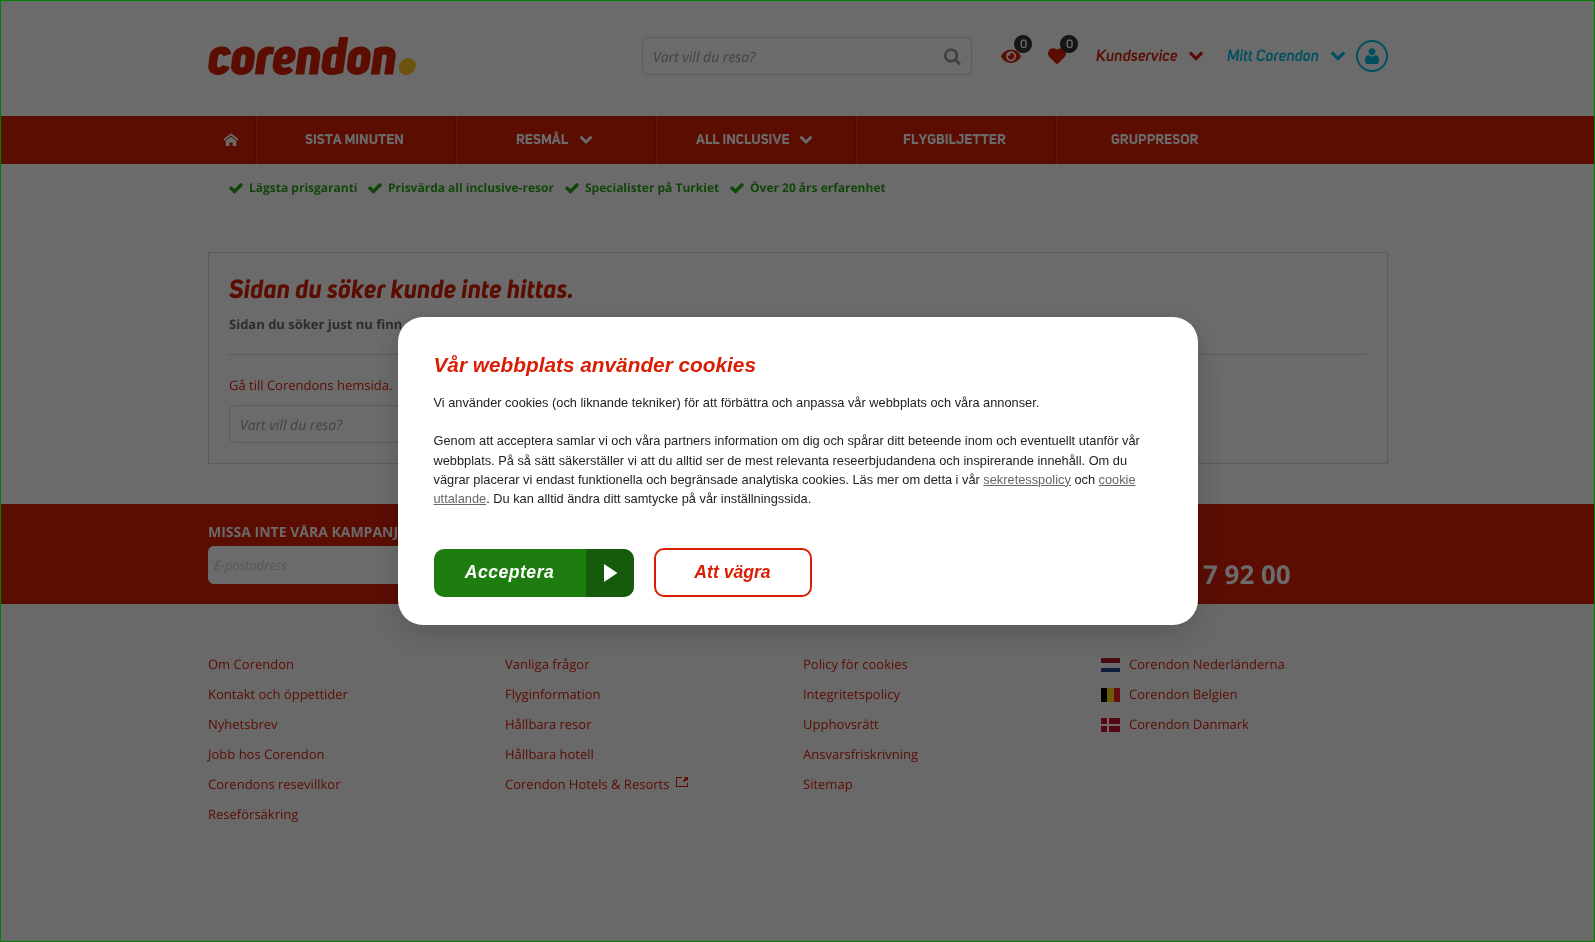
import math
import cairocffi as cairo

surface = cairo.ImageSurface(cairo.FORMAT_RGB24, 1595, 942)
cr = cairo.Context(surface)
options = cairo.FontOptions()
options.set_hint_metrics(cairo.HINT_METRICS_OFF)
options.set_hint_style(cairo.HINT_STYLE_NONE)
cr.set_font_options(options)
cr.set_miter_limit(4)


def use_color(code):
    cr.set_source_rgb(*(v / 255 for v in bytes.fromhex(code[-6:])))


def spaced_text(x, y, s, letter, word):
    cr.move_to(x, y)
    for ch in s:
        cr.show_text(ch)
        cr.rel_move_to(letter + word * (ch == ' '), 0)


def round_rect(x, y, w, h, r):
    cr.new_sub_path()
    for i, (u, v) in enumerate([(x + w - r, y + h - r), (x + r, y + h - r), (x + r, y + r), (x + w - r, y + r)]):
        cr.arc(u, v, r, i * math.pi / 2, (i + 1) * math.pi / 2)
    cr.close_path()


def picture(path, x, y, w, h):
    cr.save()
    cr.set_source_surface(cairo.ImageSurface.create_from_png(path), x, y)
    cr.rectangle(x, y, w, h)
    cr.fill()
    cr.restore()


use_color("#b3b3b3")
cr.paint()
picture("img2.png", 208, 37, 208, 38)
picture("img3.png", 1001, 49, 20, 14)
use_color("#242424")
cr.arc(1023, 44, 9, 0, 2 * math.pi)
cr.fill()
picture("img4.png", 1048, 48, 18, 16)
cr.arc(1069, 44, 9, 0, 2 * math.pi)
cr.fill()
round_rect(642.5, 37.5, 329, 37, 5.5)
use_color("#989898")
cr.set_line_width(1)
cr.stroke()
picture("img5.png", 944, 48, 17, 18)
picture("img6.png", 1189, 51, 14, 10)
picture("img7.png", 1331, 51, 14, 10)
cr.arc(1372, 56, 15, 0, 2 * math.pi)
use_color("#00849e")
cr.set_line_width(2)
cr.stroke()
picture("img8.png", 1365, 48, 14, 17)
use_color("#971504")
cr.rectangle(1, 116, 1593, 48)
cr.fill()
picture("img9.png", 224, 133, 14, 13)
use_color("#9b2d1e")
cr.rectangle(256, 116, 1, 48)
cr.fill()
use_color("#811203")
cr.rectangle(255, 116, 1, 48)
cr.fill()
use_color("#9b2d1e")
cr.rectangle(456, 116, 1, 48)
cr.fill()
use_color("#811203")
cr.rectangle(455, 116, 1, 48)
cr.fill()
picture("img10.png", 579, 136, 14, 8)
use_color("#9b2d1e")
cr.rectangle(656, 116, 1, 48)
cr.fill()
use_color("#811203")
cr.rectangle(655, 116, 1, 48)
cr.fill()
picture("img10.png", 799, 136, 14, 8)
use_color("#9b2d1e")
cr.rectangle(856, 116, 1, 48)
cr.fill()
use_color("#811203")
cr.rectangle(855, 116, 1, 48)
cr.fill()
use_color("#9b2d1e")
cr.rectangle(1056, 116, 1, 48)
cr.fill()
use_color("#811203")
cr.rectangle(1055, 116, 1, 48)
cr.fill()
picture("img11.png", 229, 183, 14, 11)
picture("img11.png", 368, 183, 14, 11)
picture("img11.png", 565, 183, 14, 11)
picture("img11.png", 730, 183, 14, 11)
cr.rectangle(208.5, 252.5, 1179, 211)
use_color("#989898")
cr.set_line_width(1)
cr.stroke()
cr.rectangle(229, 354, 1138, 1)
cr.fill()
round_rect(229.5, 405.5, 299, 37, 5.5)
cr.stroke()
use_color("#afafaf")
cr.rectangle(1, 604, 1593, 337)
cr.fill()
use_color("#971504")
cr.rectangle(1, 504, 1593, 100)
cr.fill()
use_color("#b3b3b3")
round_rect(208, 546, 447, 38, 6)
cr.fill()
picture("img12.png", 676, 777, 12, 10)
use_color("#173161")
cr.rectangle(1101, 668, 19, 4)
cr.fill()
use_color("#b3b3b3")
cr.rectangle(1101, 663, 19, 5)
cr.fill()
use_color("#7a141c")
cr.rectangle(1101, 658, 19, 5)
cr.fill()
cr.rectangle(1100.5, 657.5, 20, 15)
use_color("#b3b3b3")
cr.stroke()
use_color("#000000")
cr.rectangle(1101, 688, 6, 14)
cr.fill()
use_color("#b39808")
cr.rectangle(1107, 688, 7, 14)
cr.fill()
use_color("#aa1122")
cr.rectangle(1114, 688, 6, 14)
cr.fill()
cr.rectangle(1100.5, 687.5, 20, 15)
use_color("#b3b3b3")
cr.stroke()
use_color("#8c0b20")
cr.rectangle(1101, 718, 19, 14)
cr.fill()
use_color("#b3b3b3")
cr.rectangle(1107, 718, 2, 14)
cr.fill()
cr.rectangle(1101, 724, 19, 2)
cr.fill()
cr.rectangle(1100.5, 717.5, 20, 15)
cr.stroke()
cr.rectangle(0.5, 0.5, 1594, 941)
use_color("#008000")
cr.stroke()
cr.select_font_face("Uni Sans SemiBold")
cr.set_font_size(12)
use_color("#b3b3b3")
spaced_text(1020, 48, "0", -1, 0)
spaced_text(1066, 48, "0", -1, 0)
cr.select_font_face("Open Sans", cairo.FONT_SLANT_ITALIC)
cr.set_font_size(14)
use_color("#6b6b6b")
cr.move_to(653, 62)
cr.show_text("Vart vill du resa?")
cr.select_font_face("Uni Sans SemiBold", cairo.FONT_SLANT_ITALIC)
cr.set_font_size(16)
use_color("#971504")
cr.move_to(1096, 61)
cr.show_text("Kundservice")
use_color("#00849e")
cr.move_to(1227, 61)
cr.show_text("Mitt Corendon")
cr.select_font_face("Uni Sans", cairo.FONT_SLANT_NORMAL, cairo.FONT_WEIGHT_BOLD)
cr.set_font_size(14)
use_color("#b3b3b3")
cr.move_to(305, 144)
cr.show_text("SISTA MINUTEN")
cr.move_to(516, 144)
cr.show_text("RESMÅL")
cr.move_to(696, 144)
cr.show_text("ALL INCLUSIVE")
cr.move_to(903, 144)
cr.show_text("FLYGBILJETTER")
cr.move_to(1111, 144)
cr.show_text("GRUPPRESOR")
cr.select_font_face("Open Sans", cairo.FONT_SLANT_NORMAL, cairo.FONT_WEIGHT_BOLD)
cr.set_font_size(12)
use_color("#1b730e")
cr.move_to(249, 192)
cr.show_text("Lägsta prisgaranti")
cr.move_to(388, 192)
cr.show_text("Prisvärda all inclusive-resor")
cr.move_to(585, 192)
cr.show_text("Specialister på Turkiet")
cr.move_to(750, 192)
cr.show_text("Över 20 års erfarenhet")
cr.select_font_face("Uni Sans", cairo.FONT_SLANT_ITALIC, cairo.FONT_WEIGHT_BOLD)
cr.set_font_size(26)
use_color("#971504")
cr.move_to(229, 298)
cr.show_text("Sidan du söker kunde inte hittas.")
cr.select_font_face("Open Sans", cairo.FONT_SLANT_NORMAL, cairo.FONT_WEIGHT_BOLD)
cr.set_font_size(13)
use_color("#474747")
cr.move_to(229, 329)
cr.show_text("Sidan du söker just nu finn")
cr.select_font_face("Open Sans")
use_color("#971504")
cr.move_to(229, 390)
cr.show_text("Gå till Corendons hemsida.")
cr.select_font_face("Open Sans", cairo.FONT_SLANT_ITALIC)
cr.set_font_size(14)
use_color("#6b6b6b")
cr.move_to(240, 430)
cr.show_text("Vart vill du resa?")
cr.select_font_face("Open Sans", cairo.FONT_SLANT_NORMAL, cairo.FONT_WEIGHT_BOLD)
use_color("#b3b3b3")
cr.move_to(208, 537)
cr.show_text("MISSA INTE VÅRA KAMPANJ")
cr.select_font_face("Open Sans", cairo.FONT_SLANT_ITALIC)
cr.set_font_size(13)
use_color("#8f8f8f")
cr.move_to(214, 570)
cr.show_text("E-postadress")
cr.select_font_face("Open Sans", cairo.FONT_SLANT_NORMAL, cairo.FONT_WEIGHT_BOLD)
cr.set_font_size(26)
use_color("#b3b3b3")
cr.move_to(1203, 584)
cr.show_text("7 92 00")
cr.select_font_face("Open Sans")
cr.set_font_size(13)
use_color("#971504")
cr.move_to(208, 669)
cr.show_text("Om Corendon")
cr.move_to(208, 699)
cr.show_text("Kontakt och öppettider")
cr.move_to(208, 729)
cr.show_text("Nyhetsbrev")
cr.move_to(208, 759)
cr.show_text("Jobb hos Corendon")
cr.move_to(208, 789)
cr.show_text("Corendons resevillkor")
cr.move_to(208, 819)
cr.show_text("Reseförsäkring")
cr.move_to(505, 669)
cr.show_text("Vanliga frågor")
cr.move_to(505, 699)
cr.show_text("Flyginformation")
cr.move_to(505, 729)
cr.show_text("Hållbara resor")
cr.move_to(505, 759)
cr.show_text("Hållbara hotell")
cr.move_to(505, 789)
cr.show_text("Corendon Hotels & Resorts")
cr.move_to(803, 669)
cr.show_text("Policy för cookies")
cr.move_to(803, 699)
cr.show_text("Integritetspolicy")
cr.move_to(803, 729)
cr.show_text("Upphovsrätt")
cr.move_to(803, 759)
cr.show_text("Ansvarsfriskrivning")
cr.move_to(803, 789)
cr.show_text("Sitemap")
cr.move_to(1129, 669)
cr.show_text("Corendon Nederländerna")
cr.move_to(1129, 699)
cr.show_text("Corendon Belgien")
cr.move_to(1129, 729)
cr.show_text("Corendon Danmark")
picture("img1.png", 1, 1, 1593, 940)
surface.write_to_png("result.png")
